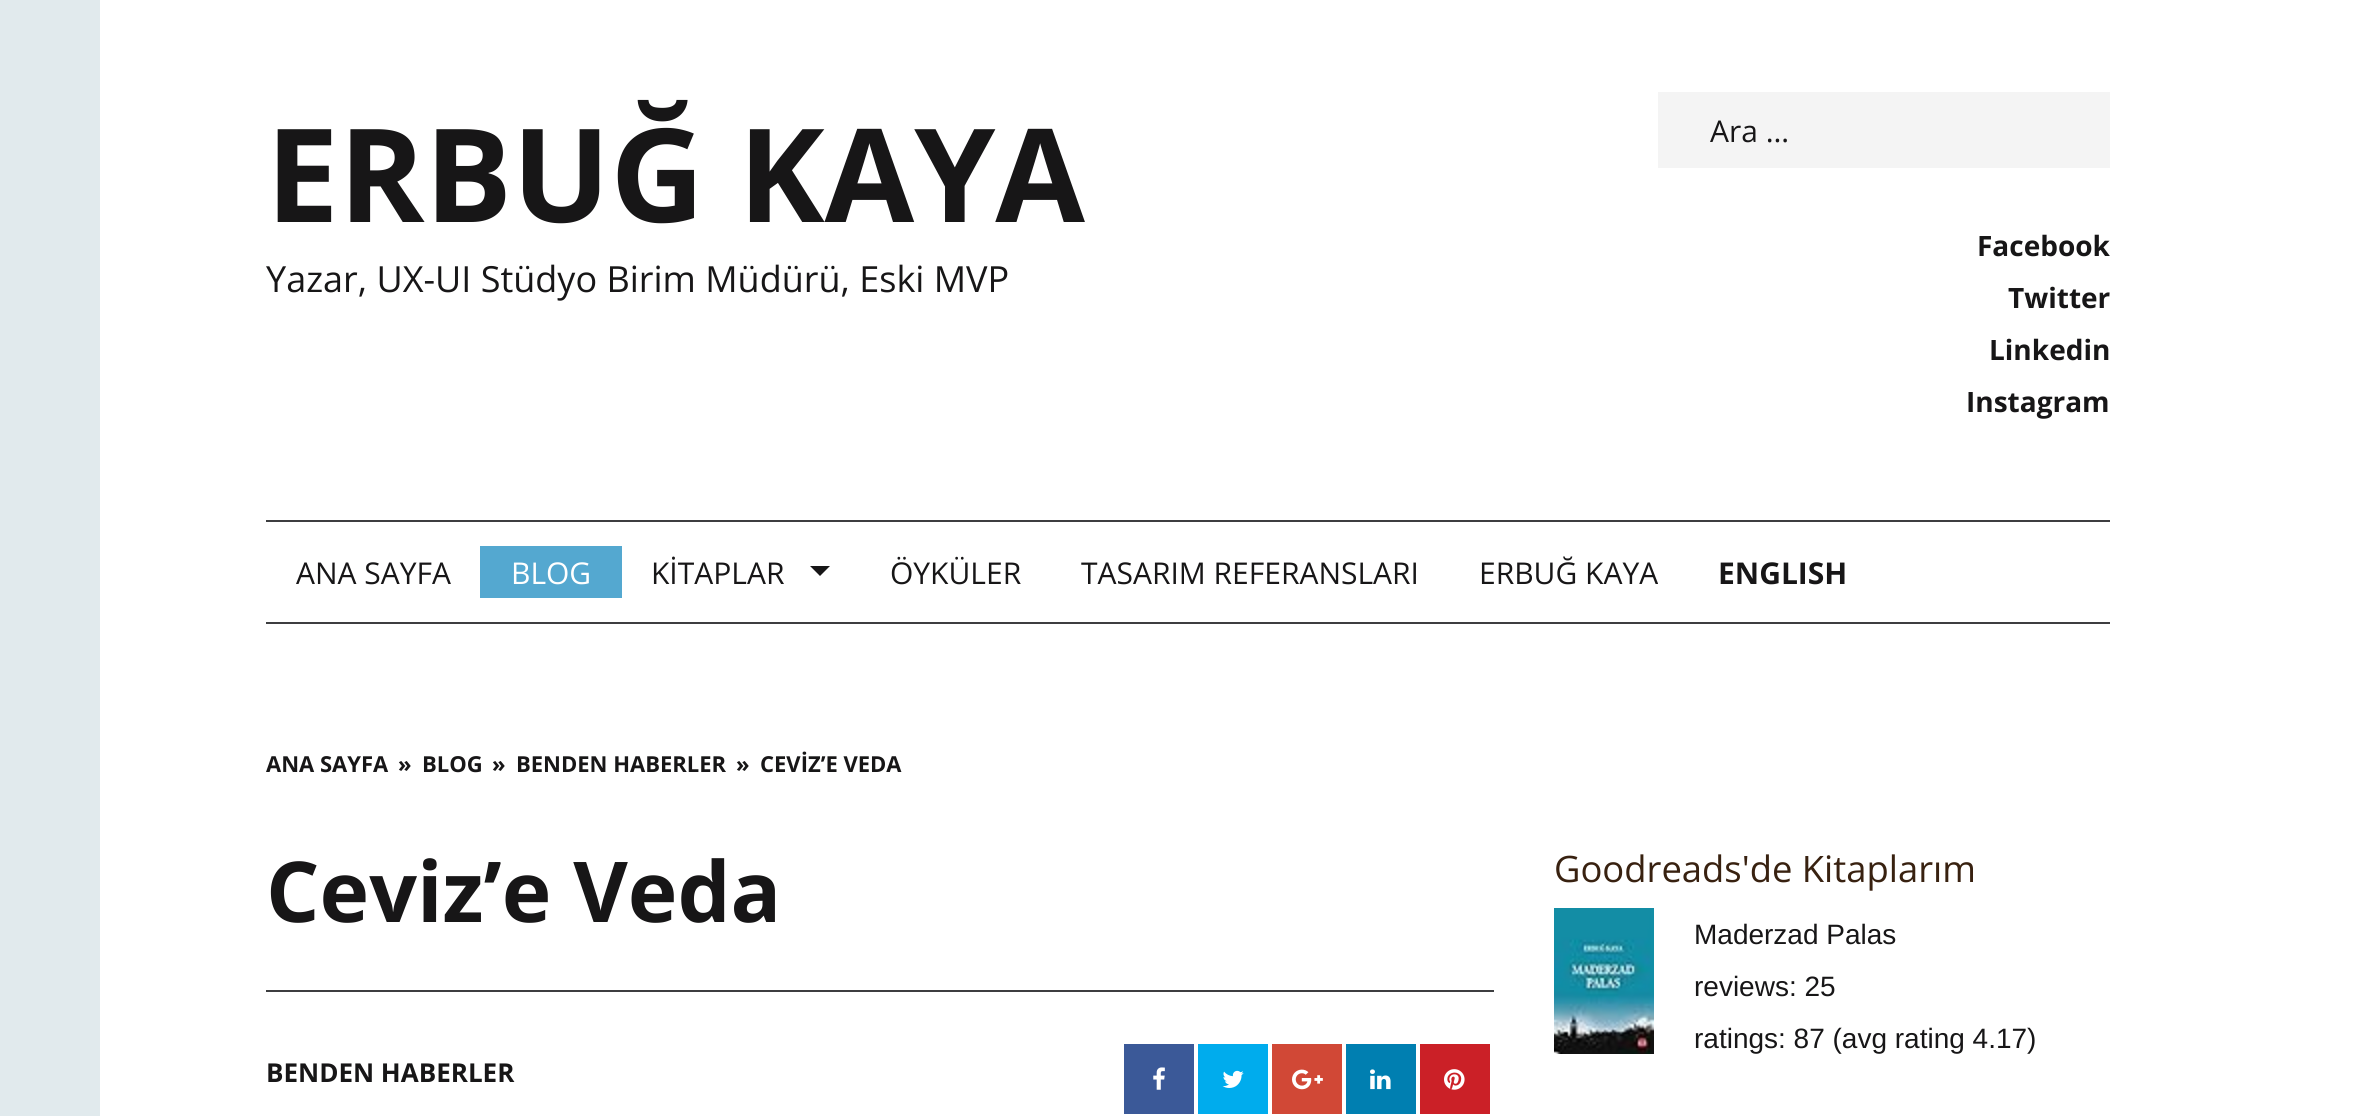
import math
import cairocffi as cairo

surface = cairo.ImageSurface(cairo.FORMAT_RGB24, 2376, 1116)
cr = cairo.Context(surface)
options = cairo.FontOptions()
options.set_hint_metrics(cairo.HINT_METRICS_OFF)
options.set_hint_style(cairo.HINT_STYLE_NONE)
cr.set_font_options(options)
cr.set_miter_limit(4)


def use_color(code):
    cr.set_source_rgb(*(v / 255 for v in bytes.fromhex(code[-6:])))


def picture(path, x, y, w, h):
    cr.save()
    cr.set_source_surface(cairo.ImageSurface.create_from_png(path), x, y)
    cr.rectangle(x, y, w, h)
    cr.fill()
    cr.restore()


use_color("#ffffff")
cr.paint()
use_color("#e1eaed")
cr.rectangle(0, 0, 100, 1116)
cr.fill()
cr.select_font_face("Open Sans", cairo.FONT_SLANT_NORMAL, cairo.FONT_WEIGHT_BOLD)
cr.set_font_size(130)
use_color("#171617")
cr.move_to(266, 222)
cr.show_text("ERBUĞ KAYA")
cr.select_font_face("Open Sans")
cr.set_font_size(36)
cr.move_to(266, 292)
cr.show_text("Yazar, UX-UI Stüdyo Birim Müdürü, Eski MVP")
use_color("#f4f4f4")
cr.rectangle(1658, 92, 452, 76)
cr.fill()
cr.set_font_size(30)
use_color("#171617")
cr.move_to(1710, 142)
cr.show_text("Ara …")
cr.select_font_face("Open Sans", cairo.FONT_SLANT_NORMAL, cairo.FONT_WEIGHT_BOLD)
cr.set_font_size(28)
cr.move_to(1977, 256)
cr.show_text("Facebook")
cr.move_to(2008, 308)
cr.show_text("Twitter")
cr.move_to(1989, 360)
cr.show_text("Linkedin")
cr.move_to(1966, 412)
cr.show_text("Instagram")
use_color("#3d3e40")
cr.rectangle(266, 520, 1844, 2)
cr.fill()
cr.rectangle(266, 622, 1844, 2)
cr.fill()
cr.select_font_face("Open Sans")
cr.set_font_size(30)
use_color("#171617")
cr.move_to(296, 584)
cr.show_text("ANA SAYFA")
use_color("#54a8d0")
cr.rectangle(480, 546, 142, 52)
cr.fill()
use_color("#ffffff")
cr.move_to(511, 584)
cr.show_text("BLOG")
use_color("#171617")
cr.move_to(651, 584)
cr.show_text("KİTAPLAR")
cr.new_path()
cr.move_to(810, 566)
cr.line_to(830, 566)
cr.line_to(820, 576)
cr.close_path()
cr.fill()
cr.move_to(890, 584)
cr.show_text("ÖYKÜLER")
cr.move_to(1081, 584)
cr.show_text("TASARIM REFERANSLARI")
cr.move_to(1479, 584)
cr.show_text("ERBUĞ KAYA")
cr.select_font_face("Open Sans", cairo.FONT_SLANT_NORMAL, cairo.FONT_WEIGHT_BOLD)
cr.move_to(1718, 584)
cr.show_text("ENGLISH")
cr.set_font_size(22)
cr.move_to(266, 772)
cr.show_text("ANA SAYFA")
cr.move_to(398, 772)
cr.show_text("»")
cr.move_to(422, 772)
cr.show_text("BLOG")
cr.move_to(492, 772)
cr.show_text("»")
cr.move_to(516, 772)
cr.show_text("BENDEN HABERLER")
cr.move_to(736, 772)
cr.show_text("»")
cr.move_to(760, 772)
cr.show_text("CEVİZ’E VEDA")
cr.set_font_size(84)
cr.move_to(266, 922)
cr.show_text("Ceviz’e Veda")
use_color("#3d3e40")
cr.rectangle(266, 990, 1228, 2)
cr.fill()
cr.set_font_size(26)
use_color("#171617")
cr.move_to(266, 1082)
cr.show_text("BENDEN HABERLER")
use_color("#3b5998")
cr.rectangle(1124, 1044, 70, 70)
cr.fill()
picture("img1.png", 1153, 1067, 12, 23)
use_color("#00aced")
cr.rectangle(1198, 1044, 70, 70)
cr.fill()
picture("img2.png", 1222, 1070, 22, 18)
use_color("#d14836")
cr.rectangle(1272, 1044, 70, 70)
cr.fill()
picture("img3.png", 1292, 1069, 31, 21)
use_color("#007fb1")
cr.rectangle(1346, 1044, 70, 70)
cr.fill()
picture("img4.png", 1370, 1069, 21, 21)
use_color("#cb2027")
cr.rectangle(1420, 1044, 70, 70)
cr.fill()
picture("img5.png", 1444, 1069, 21, 21)
cr.select_font_face("Open Sans")
cr.set_font_size(36.4)
use_color("#382110")
cr.move_to(1554, 882)
cr.show_text("Goodreads'de Kitaplarım")
picture("img6.png", 1554, 908, 100, 146)
cr.select_font_face("Liberation Sans")
cr.set_font_size(28)
use_color("#171617")
cr.move_to(1694, 944)
cr.show_text("Maderzad Palas")
cr.move_to(1694, 996)
cr.show_text("reviews: 25")
cr.move_to(1694, 1048)
cr.show_text("ratings: 87 (avg rating 4.17)")
surface.write_to_png("result.png")
